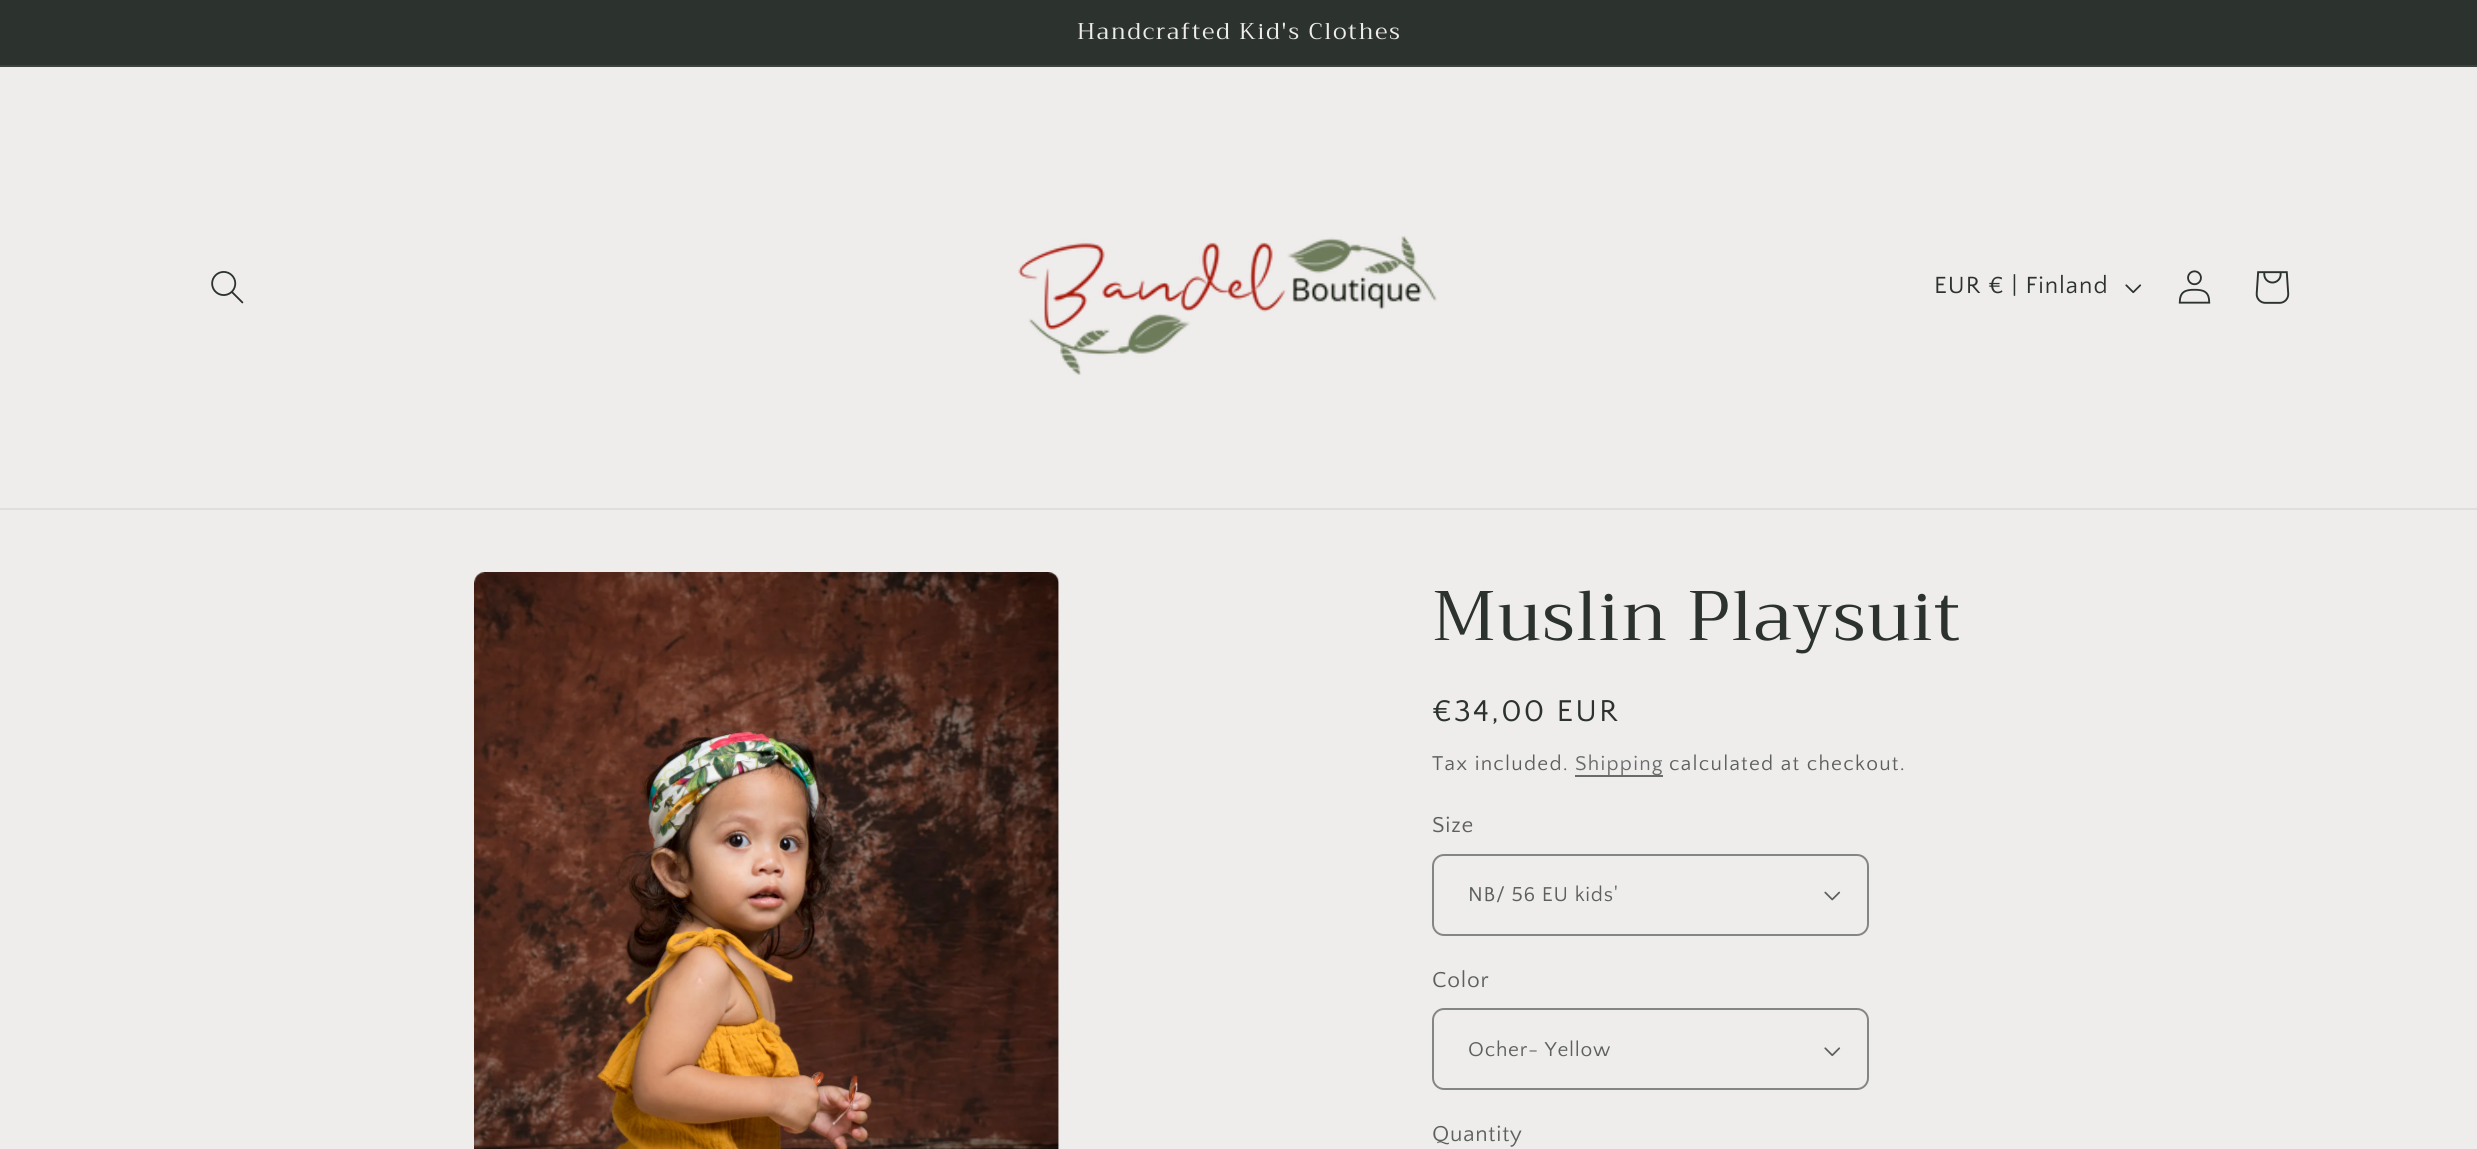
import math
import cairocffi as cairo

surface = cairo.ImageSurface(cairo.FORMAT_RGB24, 2477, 1149)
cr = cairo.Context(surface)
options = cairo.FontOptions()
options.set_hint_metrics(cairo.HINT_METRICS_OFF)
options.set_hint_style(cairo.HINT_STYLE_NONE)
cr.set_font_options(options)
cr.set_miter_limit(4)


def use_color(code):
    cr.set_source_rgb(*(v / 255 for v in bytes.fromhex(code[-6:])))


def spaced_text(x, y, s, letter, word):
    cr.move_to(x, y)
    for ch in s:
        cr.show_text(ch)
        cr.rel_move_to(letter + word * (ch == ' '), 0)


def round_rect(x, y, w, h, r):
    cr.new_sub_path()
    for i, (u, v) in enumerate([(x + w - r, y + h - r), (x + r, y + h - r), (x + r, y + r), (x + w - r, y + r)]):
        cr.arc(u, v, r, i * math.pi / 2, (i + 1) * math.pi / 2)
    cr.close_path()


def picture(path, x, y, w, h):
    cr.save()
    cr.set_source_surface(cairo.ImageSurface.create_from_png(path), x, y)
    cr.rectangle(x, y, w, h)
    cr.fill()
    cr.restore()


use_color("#efecec")
cr.paint()
use_color("#2c332f")
cr.rectangle(0, 0, 2477, 65)
cr.fill()
use_color("#3c423e")
cr.rectangle(0, 65, 2477, 2)
cr.fill()
cr.select_font_face("Trirong")
cr.set_font_size(22.75)
use_color("#efecec")
spaced_text(1077, 39, "Handcrafted Kid's Clothes", 1.75, 0)
use_color("#dfdddd")
cr.rectangle(0, 508, 2477, 2)
cr.fill()
picture("img1.png", 211, 271, 33, 33)
picture("img2.png", 1018, 236, 419, 139)
cr.select_font_face("Quattrocento Sans")
cr.set_font_size(24.5)
use_color("#2c332f")
spaced_text(1934, 293, "EUR € | Finland", 1, 0)
picture("img3.png", 2125, 284, 17, 10)
picture("img4.png", 2178, 270, 33, 34)
picture("img5.png", 2255, 271, 35, 33)
picture("img6.png", 474, 572, 585, 577)
cr.select_font_face("Trirong")
cr.set_font_size(70)
spaced_text(1432, 640, "Muslin Playsuit", 1, 0)
cr.select_font_face("Quattrocento Sans")
cr.set_font_size(31.5)
spaced_text(1432, 721, "€34,00 EUR", 2.25, 0)
cr.set_font_size(21)
use_color("#5d615e")
spaced_text(1432, 770, "Tax included.", 1.25, 0)
use_color("#686d6c")
cr.rectangle(1575, 775, 88, 2)
cr.fill()
use_color("#686c6b")
spaced_text(1575, 770, "Shipping", 1.25, 0)
use_color("#5d615e")
spaced_text(1669, 770, "calculated at checkout.", 1.25, 0)
cr.set_font_size(22.75)
spaced_text(1432, 832, "Size", 0.75, 0)
picture("img7.png", 1824, 891, 17, 10)
round_rect(1433, 855, 435, 80, 11)
use_color("#848684")
cr.stroke()
cr.set_font_size(21)
use_color("#5d615e")
spaced_text(1468, 901, "NB/ 56 EU kids'", 0.75, 0)
cr.set_font_size(22.75)
spaced_text(1432, 987, "Color", 0.75, 0)
picture("img8.png", 1824, 1047, 17, 10)
round_rect(1433, 1009, 435, 80, 11)
use_color("#848684")
cr.stroke()
cr.set_font_size(21)
use_color("#5d615e")
spaced_text(1468, 1056, "Ocher- Yellow", 0.75, 0)
cr.set_font_size(22.75)
spaced_text(1432, 1141, "Quantity", 0.75, 0)
surface.write_to_png("result.png")
